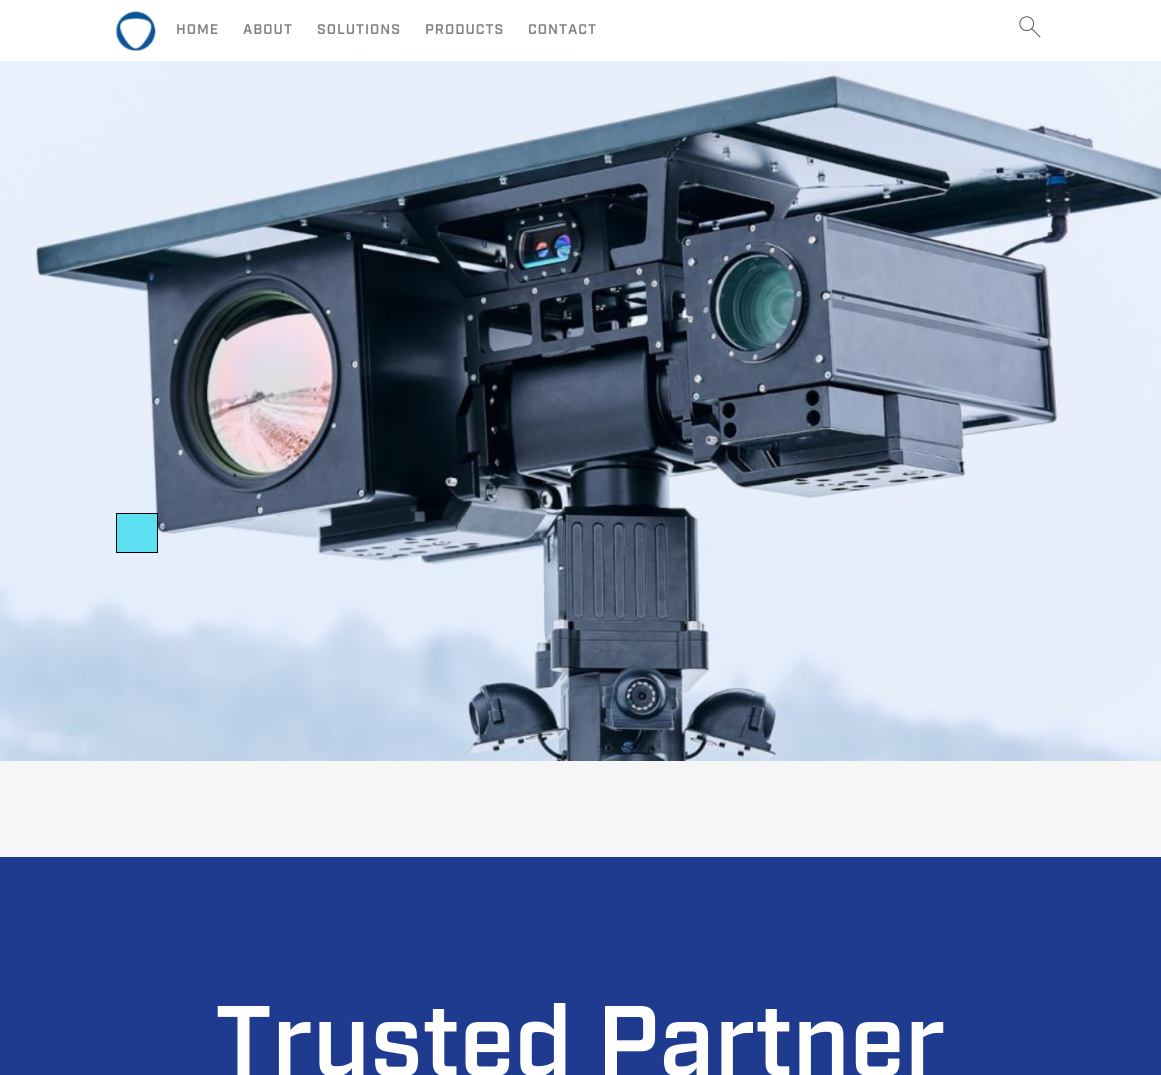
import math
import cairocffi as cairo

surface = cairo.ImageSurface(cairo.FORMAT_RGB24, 1161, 1075)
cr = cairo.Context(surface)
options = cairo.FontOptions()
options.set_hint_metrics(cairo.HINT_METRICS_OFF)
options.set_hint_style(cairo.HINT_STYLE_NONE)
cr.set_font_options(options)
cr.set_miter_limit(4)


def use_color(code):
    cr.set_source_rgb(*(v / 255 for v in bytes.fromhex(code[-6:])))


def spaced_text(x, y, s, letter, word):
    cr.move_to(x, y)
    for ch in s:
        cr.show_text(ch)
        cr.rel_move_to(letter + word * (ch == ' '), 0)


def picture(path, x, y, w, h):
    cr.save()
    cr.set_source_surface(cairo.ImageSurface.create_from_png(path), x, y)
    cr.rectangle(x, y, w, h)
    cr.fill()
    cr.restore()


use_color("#f6f6f6")
cr.paint()
use_color("#ffffff")
cr.rectangle(0, 0, 1161, 61)
cr.fill()
picture("img1.png", 115, 11, 41, 40)
cr.select_font_face("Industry")
cr.set_font_size(14)
use_color("#828282")
spaced_text(176, 34, "HOME", 1, 0)
spaced_text(243, 34, "ABOUT", 1, 0)
spaced_text(317, 34, "SOLUTIONS", 1, 0)
spaced_text(425, 34, "PRODUCTS", 1, 0)
spaced_text(528, 34, "CONTACT", 1, 0)
picture("img2.png", 1019, 16, 22, 22)
picture("img3.png", 0, 61, 1161, 700)
use_color("#5ce0f2")
cr.rectangle(116.5, 513.5, 41, 39)
cr.fill_preserve()
use_color("#000000")
cr.set_line_width(1)
cr.stroke()
use_color("#1e3b8f")
cr.rectangle(0, 857, 1161, 218)
cr.fill()
cr.set_font_size(100)
use_color("#ffffff")
cr.move_to(215, 1076)
cr.show_text("Trusted Partner")
surface.write_to_png("result.png")
